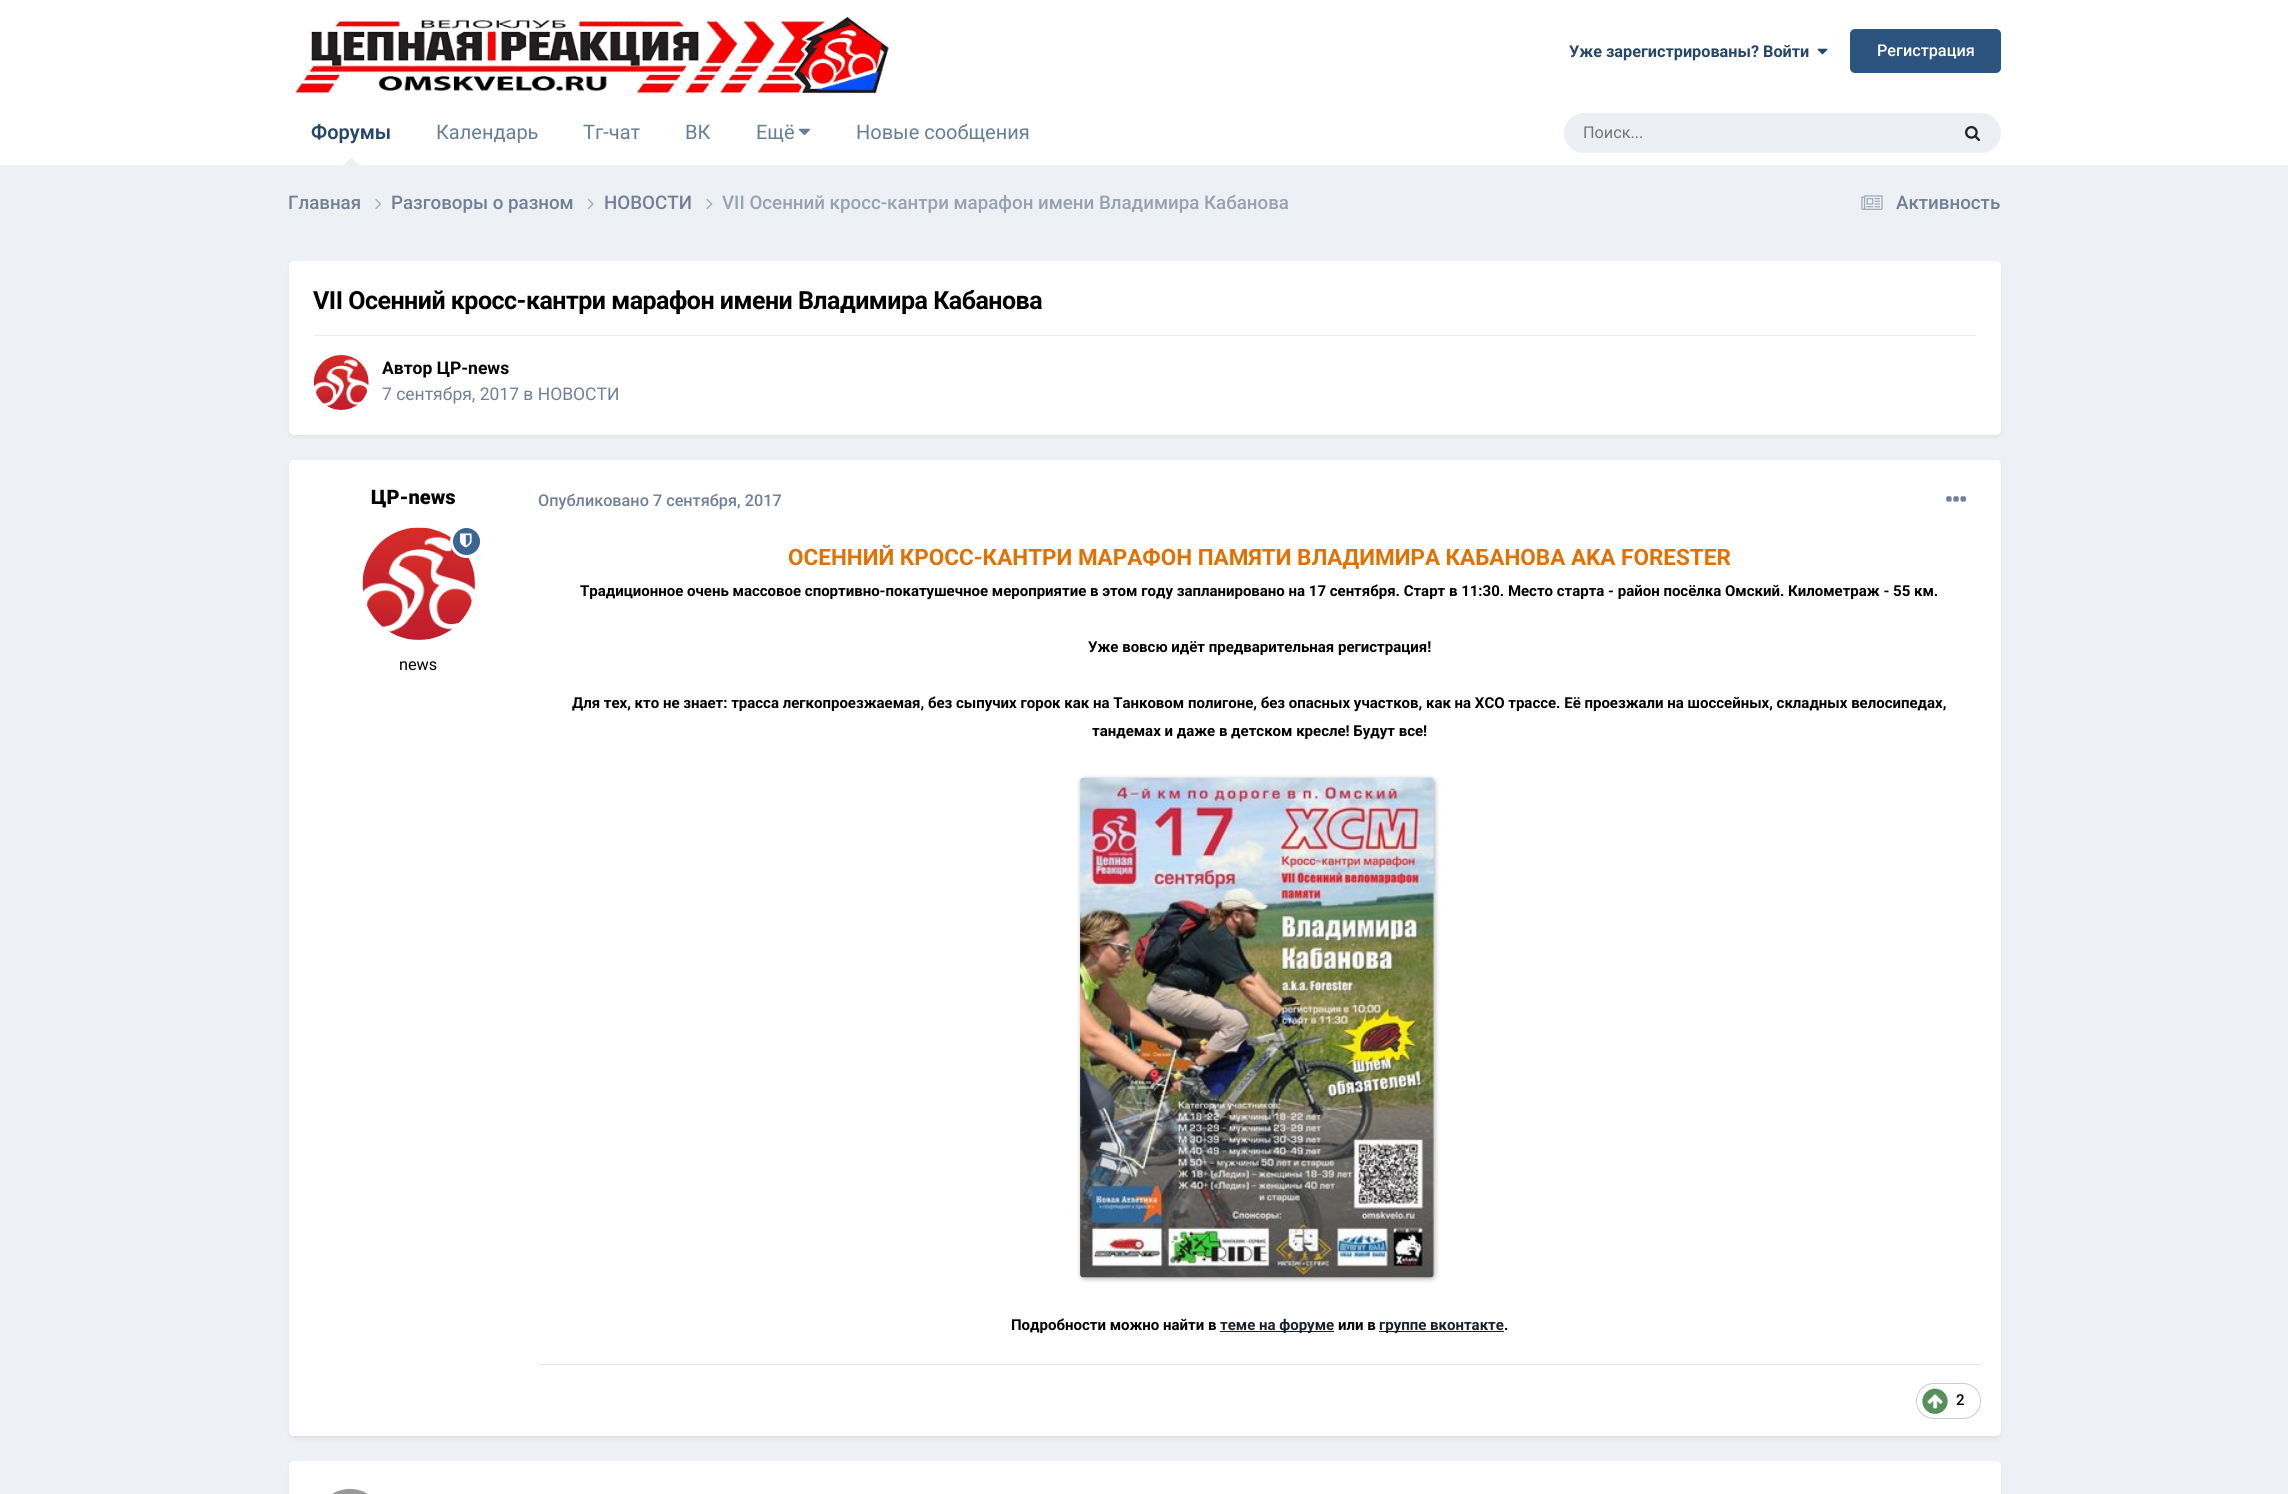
import math
import cairocffi as cairo

surface = cairo.ImageSurface(cairo.FORMAT_RGB24, 2288, 1494)
cr = cairo.Context(surface)
options = cairo.FontOptions()
options.set_hint_metrics(cairo.HINT_METRICS_OFF)
options.set_hint_style(cairo.HINT_STYLE_NONE)
cr.set_font_options(options)
cr.set_miter_limit(4)


def use_color(code):
    cr.set_source_rgb(*(v / 255 for v in bytes.fromhex(code[-6:])))


def spaced_text(x, y, s, letter, word):
    cr.move_to(x, y)
    for ch in s:
        cr.show_text(ch)
        cr.rel_move_to(letter + word * (ch == ' '), 0)


def round_rect(x, y, w, h, r):
    cr.new_sub_path()
    for i, (u, v) in enumerate([(x + w - r, y + h - r), (x + r, y + h - r), (x + r, y + r), (x + w - r, y + r)]):
        cr.arc(u, v, r, i * math.pi / 2, (i + 1) * math.pi / 2)
    cr.close_path()


def shadow(x, y, w, h, r, blur, alpha):
    cr.push_group_with_content(cairo.CONTENT_ALPHA)
    cr.set_operator(cairo.OPERATOR_SOURCE)
    for i in range(15, -16, -2):
        e = blur * i / 6
        if min(w, h) + 2 * e > 0:
            cr.set_source_rgba(0, 0, 0, alpha * math.erfc((i - 1) / 8.5) / 2)
            round_rect(x - e, y - e, w + 2 * e, h + 2 * e, max(0, min(r + e + blur * .6, min(w, h) / 2 + e)))
            cr.fill()
    cr.mask(cr.pop_group())


def picture(path, x, y, w, h):
    cr.save()
    cr.set_source_surface(cairo.ImageSurface.create_from_png(path), x, y)
    cr.rectangle(x, y, w, h)
    cr.fill()
    cr.restore()


use_color("#edf0f4")
cr.paint()
use_color("#ffffff")
cr.rectangle(0, 0, 2288, 165)
cr.fill()
picture("img1.png", 295, 16, 594, 81)
cr.select_font_face("Roboto", cairo.FONT_SLANT_NORMAL, cairo.FONT_WEIGHT_BOLD)
cr.set_font_size(16.25)
use_color("#26466a")
cr.move_to(1569, 57)
cr.show_text("Уже зарегистрированы? Войти")
picture("img2.png", 1817, 48, 11, 7)
use_color("#2d547f")
round_rect(1850, 29, 151, 44, 5)
cr.fill()
cr.select_font_face("Roboto Medium")
use_color("#ffffff")
cr.move_to(1877, 56)
cr.show_text("Регистрация")
cr.select_font_face("Roboto SemiBold")
cr.set_font_size(20)
use_color("#26466a")
cr.move_to(311, 139)
cr.show_text("Форумы")
use_color("#edf0f4")
cr.new_path()
cr.move_to(359, 165)
cr.line_to(344, 165)
cr.line_to(351, 157.5)
cr.close_path()
cr.fill()
cr.select_font_face("Roboto")
use_color("#677e97")
cr.move_to(436, 139)
cr.show_text("Календарь")
cr.move_to(583, 139)
cr.show_text("Тг-чат")
cr.move_to(685, 139)
cr.show_text("ВК")
cr.move_to(756, 139)
cr.show_text("Ещё")
picture("img3.png", 798, 128, 13, 8)
cr.move_to(856, 139)
cr.show_text("Новые сообщения")
use_color("#ecf0f4")
round_rect(1564, 113, 437, 40, 20)
cr.fill()
cr.set_font_size(16.25)
use_color("#757575")
cr.move_to(1583, 138)
cr.show_text("Поиск...")
picture("img4.png", 1965, 126, 16, 15)
cr.select_font_face("Roboto Medium")
cr.set_font_size(18.75)
use_color("#718096")
cr.move_to(288, 209)
cr.show_text("Главная")
picture("img5.png", 375, 198, 6, 11)
cr.move_to(391, 209)
cr.show_text("Разговоры о разном")
picture("img6.png", 587, 198, 7, 12)
cr.move_to(604, 209)
cr.show_text("НОВОСТИ")
picture("img7.png", 706, 198, 7, 12)
use_color("#96a2b2")
cr.move_to(722, 209)
cr.show_text("VII Осенний кросс-кантри марафон имени Владимира Кабанова")
picture("img8.png", 1861, 195, 22, 15)
use_color("#718096")
cr.move_to(1896, 209)
cr.show_text("Активность")
use_color("#2d3748")
shadow(290, 265, 1710, 171, 4, 2.5, 0.1)
use_color("#ffffff")
round_rect(289, 261, 1712, 174, 5)
cr.fill()
cr.select_font_face("Roboto", cairo.FONT_SLANT_NORMAL, cairo.FONT_WEIGHT_BOLD)
cr.set_font_size(25)
use_color("#000000")
spaced_text(313, 309, "VII Осенний кросс-кантри марафон имени Владимира Кабанова", -0.5, 0)
use_color("#ebebeb")
cr.rectangle(314, 335, 1662, 1)
cr.fill()
picture("img9.png", 313, 355, 56, 55)
cr.set_font_size(17.5)
use_color("#000000")
cr.move_to(382, 374)
cr.show_text("Автор ЦР-news")
cr.select_font_face("Roboto")
use_color("#718096")
cr.move_to(382, 400)
cr.show_text("7 сентября, 2017 в НОВОСТИ")
use_color("#2d3748")
shadow(290, 464, 1710, 974, 4, 2.5, 0.1)
use_color("#ffffff")
round_rect(289, 460, 1712, 976, 5)
cr.fill()
cr.select_font_face("Roboto Black")
cr.set_font_size(20)
use_color("#000000")
cr.move_to(371, 504)
cr.show_text("ЦР-news")
picture("img11.png", 362, 527, 113, 113)
use_color("#3d6594")
cr.arc(466.5, 541.5, 15, 0, 2 * math.pi)
cr.fill_preserve()
use_color("#ffffff")
cr.set_line_width(3)
cr.stroke()
picture("img10.png", 460, 533, 12, 15)
cr.select_font_face("Roboto")
cr.set_font_size(16.25)
use_color("#000000")
cr.move_to(399, 670)
cr.show_text("news")
cr.select_font_face("Roboto Medium")
use_color("#718096")
cr.move_to(538, 506)
cr.show_text("Опубликовано 7 сентября, 2017")
picture("img12.png", 1946, 496, 20, 6)
cr.select_font_face("Roboto", cairo.FONT_SLANT_NORMAL, cairo.FONT_WEIGHT_BOLD)
cr.set_font_size(22.5)
use_color("#e07205")
cr.move_to(788, 565)
cr.show_text("ОСЕННИЙ КРОСС-КАНТРИ МАРАФОН ПАМЯТИ ВЛАДИМИРА КАБАНОВА AKA FORESTER")
cr.set_font_size(15)
use_color("#000000")
cr.move_to(580, 596)
cr.show_text("Традиционное очень массовое спортивно-покатушечное мероприятие в этом году запланировано на 17 сентября. Старт в 11:30. Место старта - район посёлка Омский. Километраж - 55 км.")
cr.move_to(1088, 652)
cr.show_text("Уже вовсю идёт предварительная регистрация!")
cr.move_to(572, 708)
cr.show_text("Для тех, кто не знает: трасса легкопроезжаемая, без сыпучих горок как на Танковом полигоне, без опасных участков, как на XCO трассе. Её проезжали на шоссейных, складных велосипедах,")
cr.move_to(1092, 736)
cr.show_text("тандемах и даже в детском кресле! Будут все!")
use_color("#000000")
shadow(1081, 779, 354, 500, 4, 2.5, 0.3)
picture("img13.png", 1080, 777, 354, 501)
use_color("#000000")
cr.move_to(1011, 1330)
cr.show_text("Подробности можно найти в")
use_color("#1a202c")
cr.rectangle(1220, 1331, 114, 1)
cr.fill()
cr.move_to(1220, 1330)
cr.show_text("теме на форуме")
use_color("#000000")
cr.move_to(1338, 1330)
cr.show_text("или в")
use_color("#1a202c")
cr.rectangle(1379, 1331, 125, 1)
cr.fill()
cr.move_to(1379, 1330)
cr.show_text("группе вконтакте")
use_color("#000000")
cr.move_to(1504, 1330)
cr.show_text(".")
use_color("#e6e6e6")
cr.rectangle(539, 1364, 1442, 1)
cr.fill()
round_rect(1916.5, 1383.5, 64, 35, 17.5)
use_color("#c6ccd5")
cr.set_line_width(1)
cr.stroke()
picture("img14.png", 1922, 1388, 26, 26)
cr.select_font_face("Roboto Medium")
use_color("#000000")
cr.move_to(1956, 1405)
cr.show_text("2")
use_color("#2d3748")
shadow(290, 1465, 1710, 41, 4, 2.5, 0.1)
use_color("#ffffff")
round_rect(289, 1461, 1712, 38, 5)
cr.fill()
picture("img15.png", 332, 1488, 36, 6)
surface.write_to_png("result.png")
